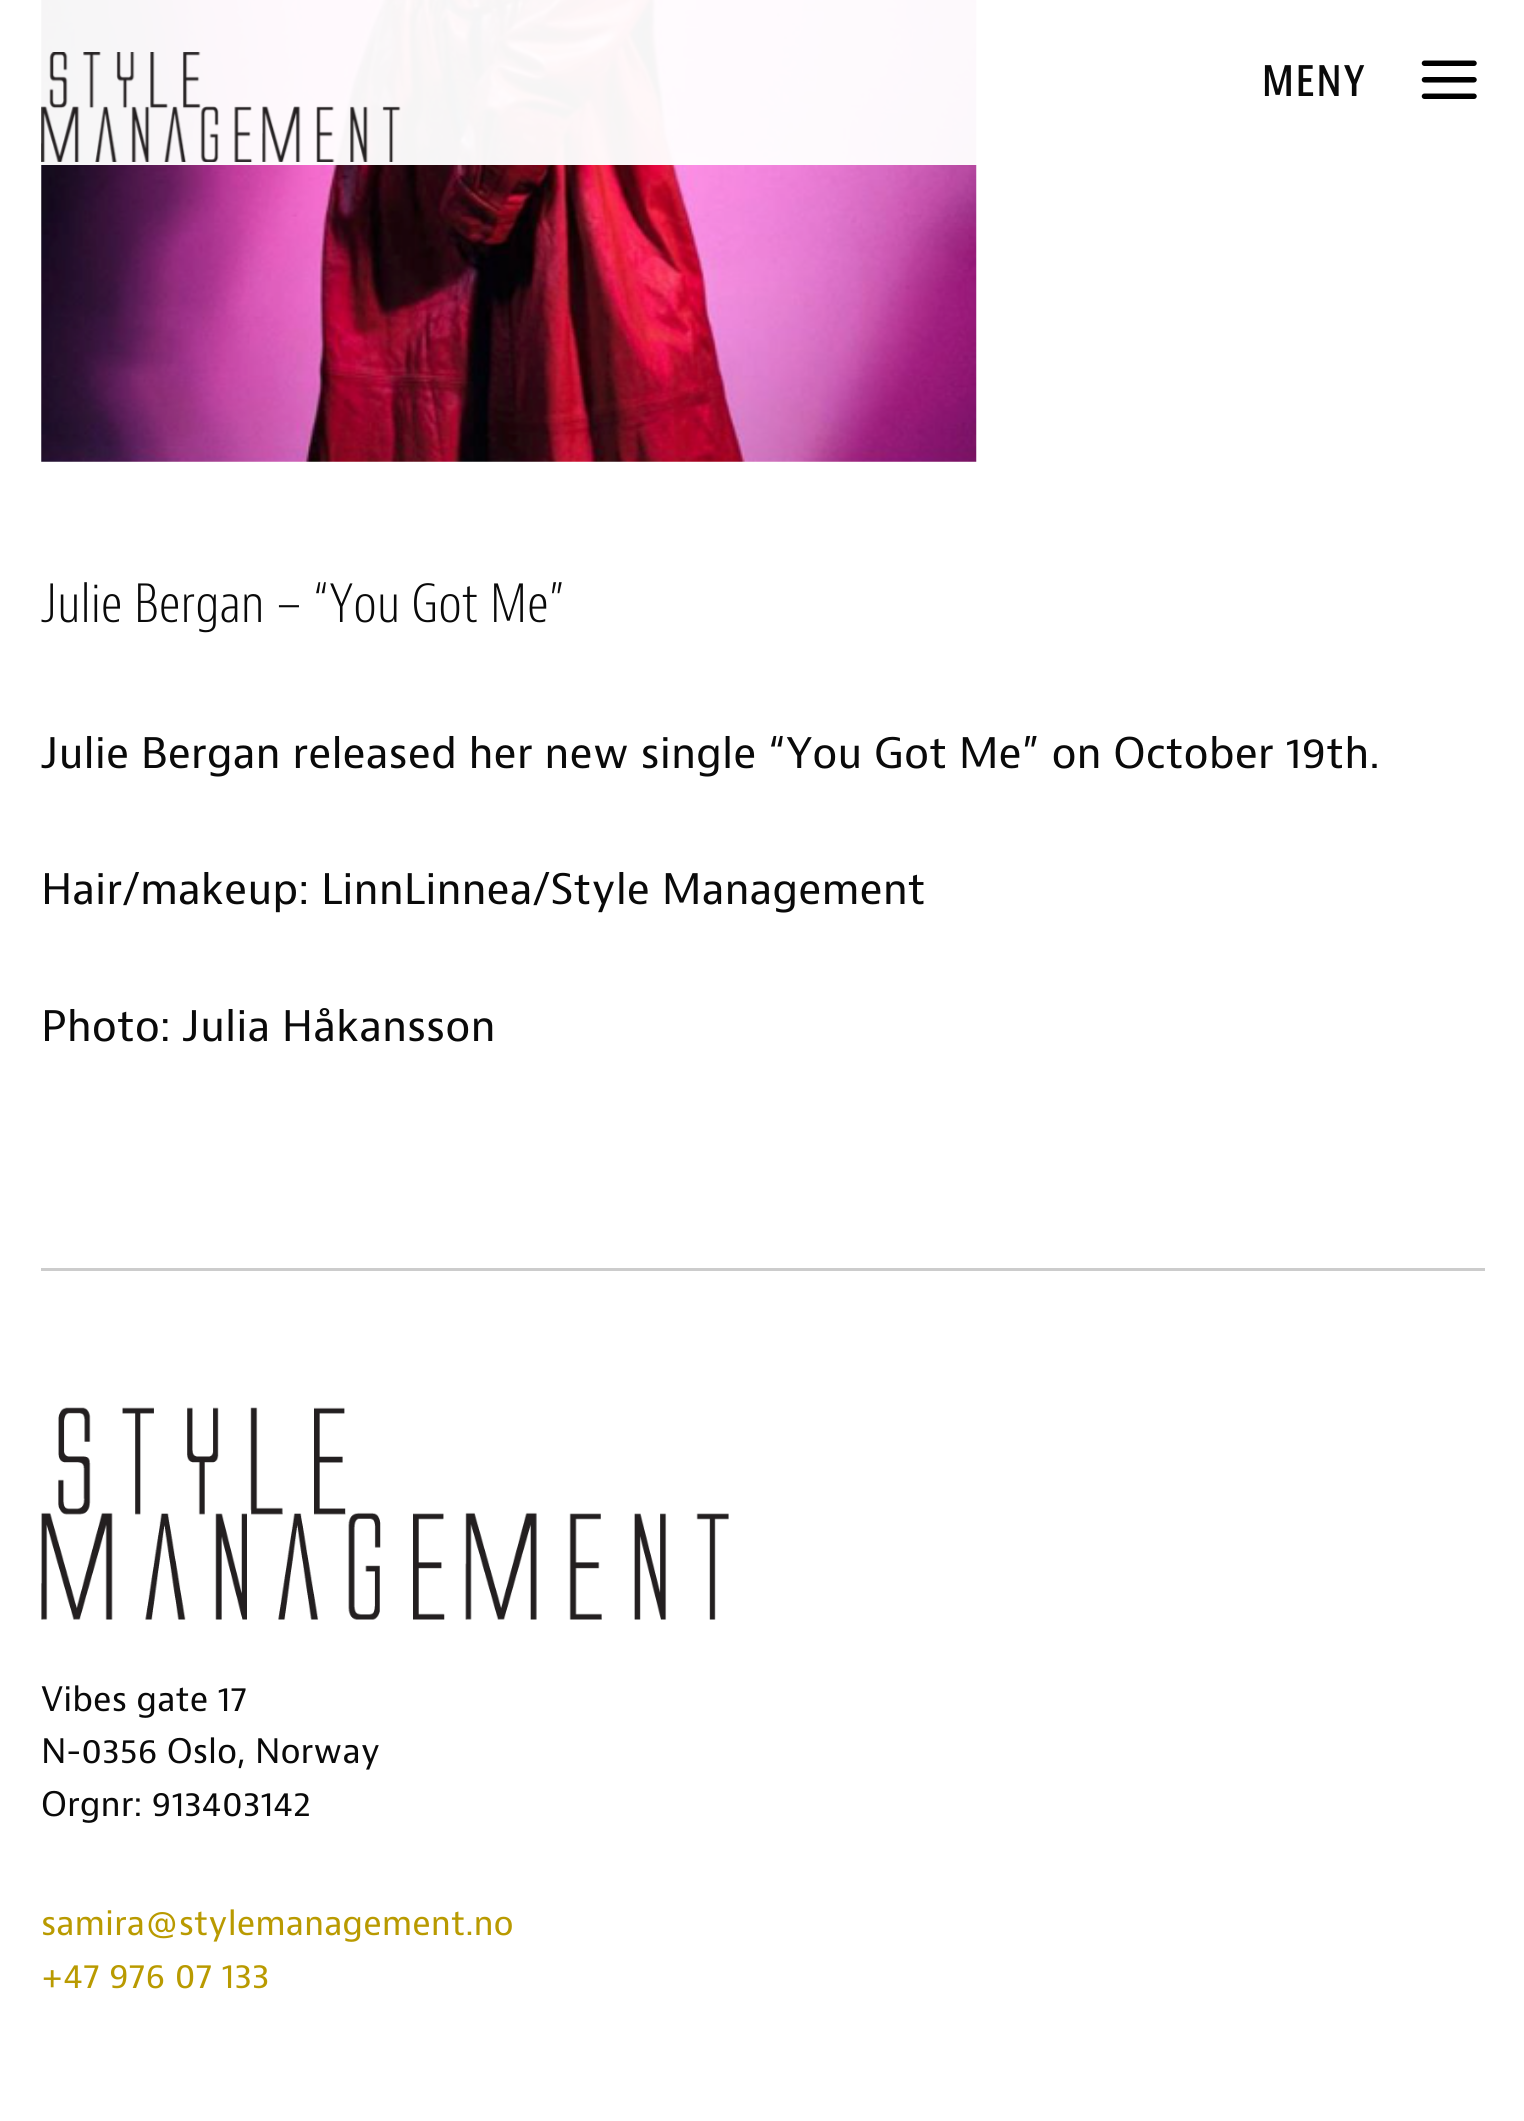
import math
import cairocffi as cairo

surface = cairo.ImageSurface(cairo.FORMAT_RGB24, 1524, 2121)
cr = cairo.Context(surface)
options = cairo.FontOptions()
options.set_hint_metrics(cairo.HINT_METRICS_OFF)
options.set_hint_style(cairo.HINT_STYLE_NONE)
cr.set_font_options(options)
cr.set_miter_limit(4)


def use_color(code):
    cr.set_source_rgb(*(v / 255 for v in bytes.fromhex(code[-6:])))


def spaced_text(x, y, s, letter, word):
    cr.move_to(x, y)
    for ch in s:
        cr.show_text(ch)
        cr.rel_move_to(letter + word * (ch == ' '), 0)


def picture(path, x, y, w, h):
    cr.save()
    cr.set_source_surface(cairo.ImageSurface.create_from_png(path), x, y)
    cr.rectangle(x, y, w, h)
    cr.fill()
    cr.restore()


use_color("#ffffff")
cr.paint()
picture("img3.png", 41, 0, 936, 462)
cr.set_source_rgba(1, 1, 1, 0.96)
cr.rectangle(41, 0, 936, 165)
cr.fill()
picture("img1.png", 41, 52, 360, 110)
cr.select_font_face("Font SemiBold")
cr.set_font_size(44)
use_color("#0a0a0a")
spaced_text(1262, 96, "MENY", 2, 0)
picture("img2.png", 1421, 60, 56, 39)
cr.select_font_face("Font Light")
cr.set_font_size(55)
cr.move_to(41, 622)
cr.show_text("Julie Bergan – “You Got Me”")
cr.select_font_face("Font")
cr.set_font_size(44)
cr.move_to(41, 768)
cr.show_text("Julie Bergan released her new single “You Got Me” on October 19th.")
cr.move_to(41, 904)
cr.show_text("Hair/makeup: LinnLinnea/Style Management")
cr.move_to(41, 1041)
cr.show_text("Photo: Julia Håkansson")
use_color("#cccccc")
cr.rectangle(41, 1268, 1444, 3)
cr.fill()
picture("img4.png", 41, 1407, 688, 213)
cr.set_font_size(35.25)
use_color("#0a0a0a")
cr.move_to(41, 1711)
cr.show_text("Vibes gate 17")
cr.move_to(41, 1763)
cr.show_text("N-0356 Oslo, Norway")
cr.move_to(41, 1816)
cr.show_text("Orgnr: 913403142")
use_color("#b99a00")
cr.move_to(41, 1935)
cr.show_text("samira@stylemanagement.no")
cr.move_to(41, 1988)
cr.show_text("+47 976 07 133")
surface.write_to_png("result.png")
